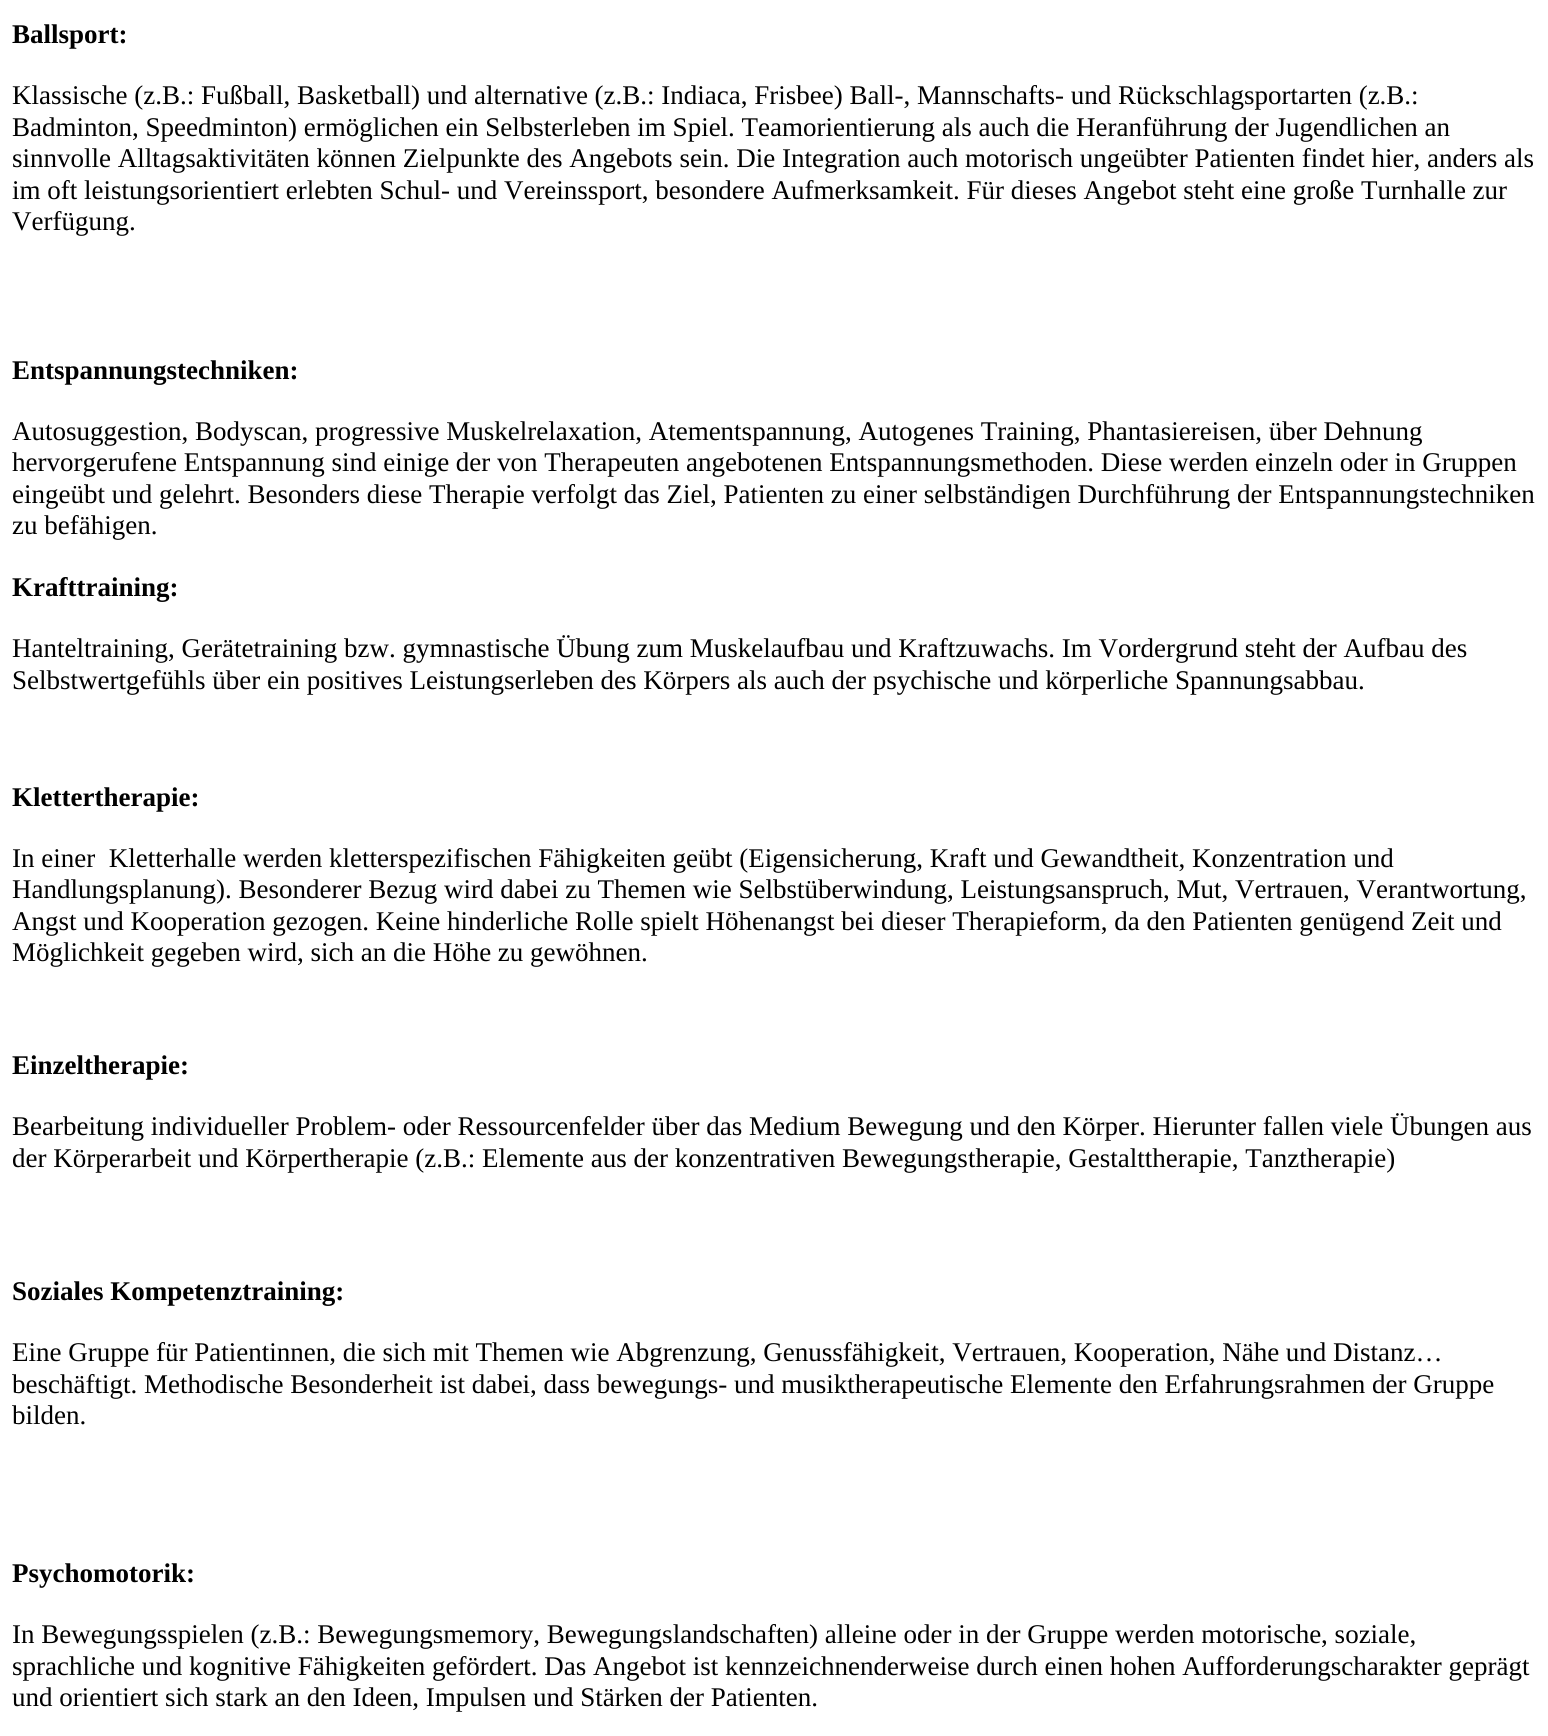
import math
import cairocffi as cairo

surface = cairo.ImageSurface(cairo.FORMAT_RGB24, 1548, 1736)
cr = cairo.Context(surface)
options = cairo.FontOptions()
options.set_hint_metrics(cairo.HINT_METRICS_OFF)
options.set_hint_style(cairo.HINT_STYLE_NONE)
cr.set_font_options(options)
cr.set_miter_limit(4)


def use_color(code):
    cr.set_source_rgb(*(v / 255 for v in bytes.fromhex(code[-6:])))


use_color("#ffffff")
cr.paint()
cr.select_font_face("Liberation Serif", cairo.FONT_SLANT_NORMAL, cairo.FONT_WEIGHT_BOLD)
cr.set_font_size(27)
use_color("#000000")
cr.move_to(12, 43)
cr.show_text("Ballsport:")
cr.select_font_face("Liberation Serif")
cr.move_to(12, 104)
cr.show_text("Klassische (z.B.: Fußball, Basketball) und alternative (z.B.: Indiaca, Frisbee) Ball-, Mannschafts- und Rückschlagsportarten (z.B.:")
cr.move_to(12, 136)
cr.show_text("Badminton, Speedminton) ermöglichen ein Selbsterleben im Spiel. Teamorientierung als auch die Heranführung der Jugendlichen an")
cr.move_to(12, 167)
cr.show_text("sinnvolle Alltagsaktivitäten können Zielpunkte des Angebots sein. Die Integration auch motorisch ungeübter Patienten findet hier, anders als")
cr.move_to(12, 199)
cr.show_text("im oft leistungsorientiert erlebten Schul- und Vereinssport, besondere Aufmerksamkeit. Für dieses Angebot steht eine große Turnhalle zur")
cr.move_to(12, 230)
cr.show_text("Verfügung.")
cr.select_font_face("Liberation Serif", cairo.FONT_SLANT_NORMAL, cairo.FONT_WEIGHT_BOLD)
cr.move_to(12, 379)
cr.show_text("Entspannungstechniken:")
cr.select_font_face("Liberation Serif")
cr.move_to(12, 440)
cr.show_text("Autosuggestion, Bodyscan, progressive Muskelrelaxation, Atementspannung, Autogenes Training, Phantasiereisen, über Dehnung")
cr.move_to(12, 471)
cr.show_text("hervorgerufene Entspannung sind einige der von Therapeuten angebotenen Entspannungsmethoden. Diese werden einzeln oder in Gruppen")
cr.move_to(12, 503)
cr.show_text("eingeübt und gelehrt. Besonders diese Therapie verfolgt das Ziel, Patienten zu einer selbständigen Durchführung der Entspannungstechniken")
cr.move_to(12, 534)
cr.show_text("zu befähigen.")
cr.select_font_face("Liberation Serif", cairo.FONT_SLANT_NORMAL, cairo.FONT_WEIGHT_BOLD)
cr.move_to(12, 596)
cr.show_text("Krafttraining:")
cr.select_font_face("Liberation Serif")
cr.move_to(12, 657)
cr.show_text("Hanteltraining, Gerätetraining bzw. gymnastische Übung zum Muskelaufbau und Kraftzuwachs. Im Vordergrund steht der Aufbau des")
cr.move_to(12, 689)
cr.show_text("Selbstwertgefühls über ein positives Leistungserleben des Körpers als auch der psychische und körperliche Spannungsabbau.")
cr.select_font_face("Liberation Serif", cairo.FONT_SLANT_NORMAL, cairo.FONT_WEIGHT_BOLD)
cr.move_to(12, 806)
cr.show_text("Klettertherapie:")
cr.select_font_face("Liberation Serif")
cr.move_to(12, 867)
cr.show_text("In einer  Kletterhalle werden kletterspezifischen Fähigkeiten geübt (Eigensicherung, Kraft und Gewandtheit, Konzentration und")
cr.move_to(12, 898)
cr.show_text("Handlungsplanung). Besonderer Bezug wird dabei zu Themen wie Selbstüberwindung, Leistungsanspruch, Mut, Vertrauen, Verantwortung,")
cr.move_to(12, 930)
cr.show_text("Angst und Kooperation gezogen. Keine hinderliche Rolle spielt Höhenangst bei dieser Therapieform, da den Patienten genügend Zeit und")
cr.move_to(12, 961)
cr.show_text("Möglichkeit gegeben wird, sich an die Höhe zu gewöhnen.")
cr.select_font_face("Liberation Serif", cairo.FONT_SLANT_NORMAL, cairo.FONT_WEIGHT_BOLD)
cr.move_to(12, 1074)
cr.show_text("Einzeltherapie:")
cr.select_font_face("Liberation Serif")
cr.move_to(12, 1135)
cr.show_text("Bearbeitung individueller Problem- oder Ressourcenfelder über das Medium Bewegung und den Körper. Hierunter fallen viele Übungen aus")
cr.move_to(12, 1167)
cr.show_text("der Körperarbeit und Körpertherapie (z.B.: Elemente aus der konzentrativen Bewegungstherapie, Gestalttherapie, Tanztherapie)")
cr.select_font_face("Liberation Serif", cairo.FONT_SLANT_NORMAL, cairo.FONT_WEIGHT_BOLD)
cr.move_to(12, 1300)
cr.show_text("Soziales Kompetenztraining:")
cr.select_font_face("Liberation Serif")
cr.move_to(12, 1361)
cr.show_text("Eine Gruppe für Patientinnen, die sich mit Themen wie Abgrenzung, Genussfähigkeit, Vertrauen, Kooperation, Nähe und Distanz…")
cr.move_to(12, 1393)
cr.show_text("beschäftigt. Methodische Besonderheit ist dabei, dass bewegungs- und musiktherapeutische Elemente den Erfahrungsrahmen der Gruppe")
cr.move_to(12, 1424)
cr.show_text("bilden.")
cr.select_font_face("Liberation Serif", cairo.FONT_SLANT_NORMAL, cairo.FONT_WEIGHT_BOLD)
cr.move_to(12, 1582)
cr.show_text("Psychomotorik:")
cr.select_font_face("Liberation Serif")
cr.move_to(12, 1643)
cr.show_text("In Bewegungsspielen (z.B.: Bewegungsmemory, Bewegungslandschaften) alleine oder in der Gruppe werden motorische, soziale,")
cr.move_to(12, 1675)
cr.show_text("sprachliche und kognitive Fähigkeiten gefördert. Das Angebot ist kennzeichnenderweise durch einen hohen Aufforderungscharakter geprägt")
cr.move_to(12, 1706)
cr.show_text("und orientiert sich stark an den Ideen, Impulsen und Stärken der Patienten.")
surface.write_to_png("result.png")
